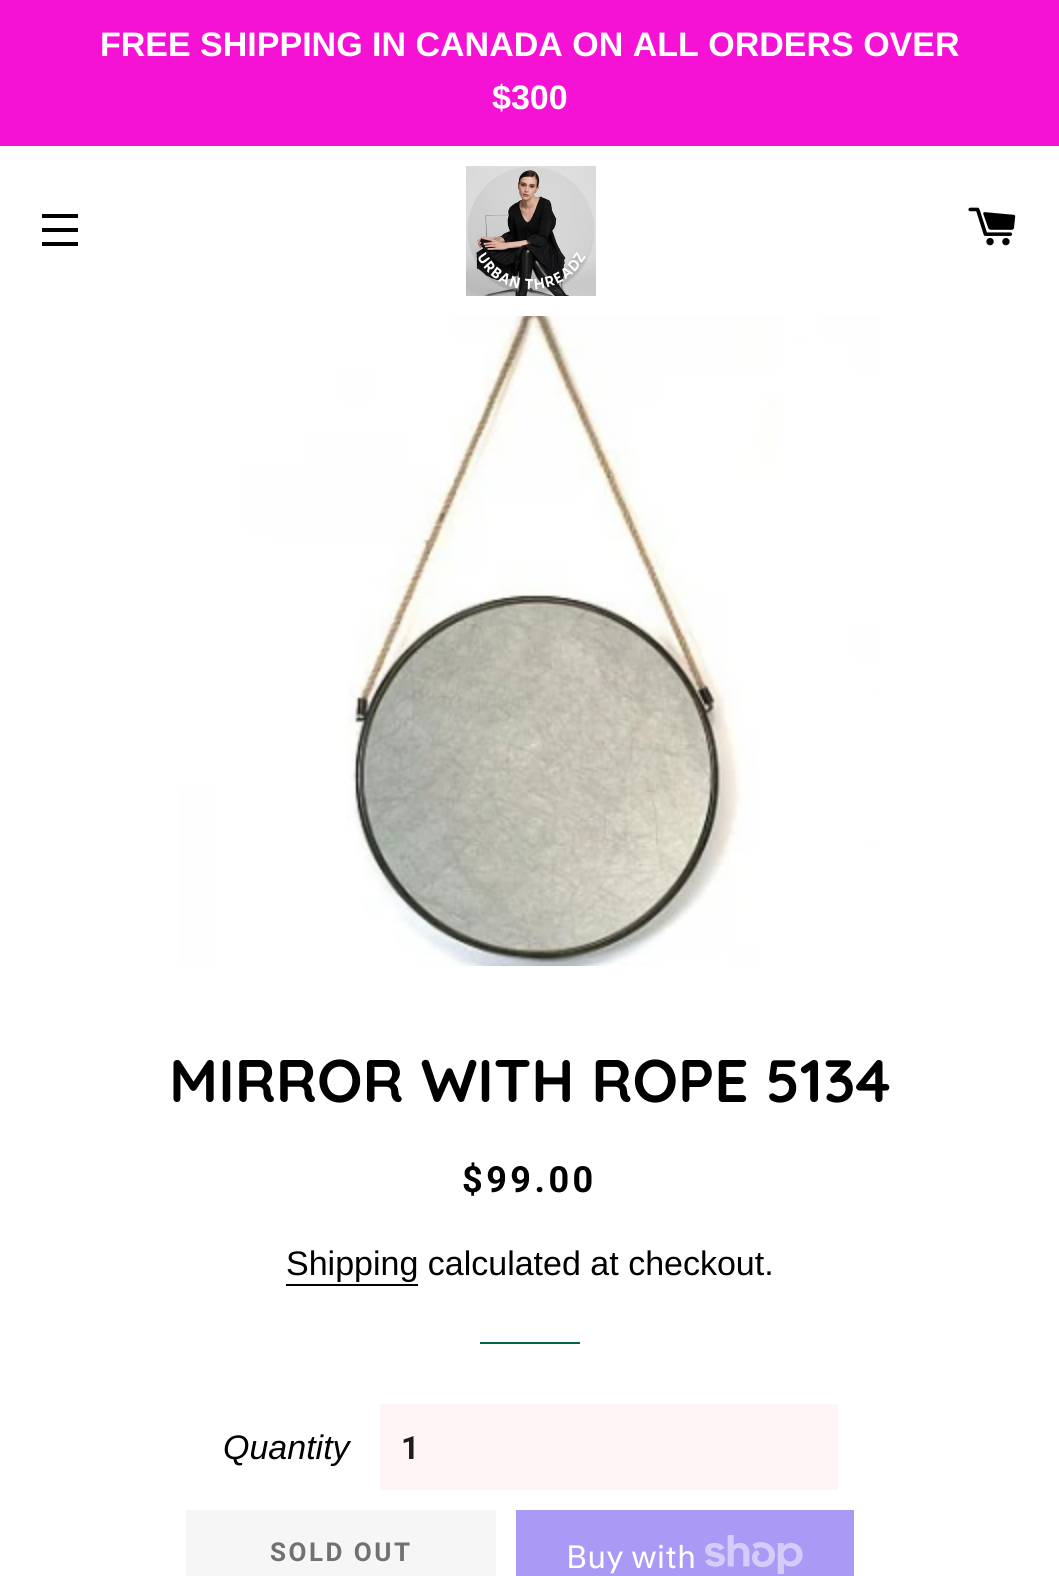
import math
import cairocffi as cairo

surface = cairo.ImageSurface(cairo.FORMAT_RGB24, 1059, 1576)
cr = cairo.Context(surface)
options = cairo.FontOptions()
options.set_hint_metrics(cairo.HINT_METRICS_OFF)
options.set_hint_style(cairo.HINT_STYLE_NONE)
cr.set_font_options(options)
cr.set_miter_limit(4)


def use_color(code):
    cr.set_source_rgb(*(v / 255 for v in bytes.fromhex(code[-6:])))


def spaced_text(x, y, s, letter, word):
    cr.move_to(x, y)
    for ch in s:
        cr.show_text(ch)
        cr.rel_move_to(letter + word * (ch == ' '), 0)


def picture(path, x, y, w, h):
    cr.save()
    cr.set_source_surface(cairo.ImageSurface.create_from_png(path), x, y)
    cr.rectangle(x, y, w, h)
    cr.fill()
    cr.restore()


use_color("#ffffff")
cr.paint()
use_color("#f512d4")
cr.rectangle(0, 0, 1059, 146)
cr.fill()
cr.select_font_face("Liberation Sans", cairo.FONT_SLANT_NORMAL, cairo.FONT_WEIGHT_BOLD)
cr.set_font_size(34)
use_color("#ffffff")
cr.move_to(100, 56)
cr.show_text("FREE SHIPPING IN CANADA ON ALL ORDERS OVER")
cr.move_to(492, 109)
cr.show_text("$300")
use_color("#000000")
cr.rectangle(42, 214, 36, 4)
cr.fill()
cr.rectangle(42, 228, 36, 4)
cr.fill()
cr.rectangle(42, 242, 36, 4)
cr.fill()
picture("img1.png", 466, 166, 130, 130)
picture("img2.png", 968, 207, 48, 39)
picture("img3.png", 180, 316, 700, 650)
cr.select_font_face("Quicksand", cairo.FONT_SLANT_NORMAL, cairo.FONT_WEIGHT_BOLD)
cr.set_font_size(60)
cr.move_to(169, 1102)
cr.show_text("MIRROR WITH ROPE 5134")
cr.select_font_face("Roboto", cairo.FONT_SLANT_NORMAL, cairo.FONT_WEIGHT_BOLD)
cr.set_font_size(36)
spaced_text(462, 1192, "$99.00", 3.5, 0)
cr.select_font_face("Liberation Sans")
cr.set_font_size(34)
cr.move_to(286, 1275)
cr.show_text("Shipping calculated at checkout.")
cr.rectangle(286, 1284, 132, 2)
cr.fill()
use_color("#03644b")
cr.rectangle(480, 1342, 100, 2)
cr.fill()
cr.select_font_face("Liberation Sans", cairo.FONT_SLANT_ITALIC)
use_color("#000000")
cr.move_to(223, 1459)
cr.show_text("Quantity")
use_color("#fff4f6")
cr.rectangle(380, 1404, 458, 86)
cr.fill()
cr.select_font_face("Roboto", cairo.FONT_SLANT_NORMAL, cairo.FONT_WEIGHT_BOLD)
cr.set_font_size(32)
use_color("#1c1d1d")
spaced_text(401, 1459, "1", 3, 0)
use_color("#f6f6f6")
cr.rectangle(186, 1510, 310, 66)
cr.fill()
cr.set_font_size(26)
use_color("#717171")
spaced_text(270, 1561, "SOLD OUT", 2.5, 0)
use_color("#aa99f5")
cr.rectangle(516, 1510, 338, 66)
cr.fill()
cr.select_font_face("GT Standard")
cr.set_font_size(32)
use_color("#ffffff")
cr.move_to(566, 1568)
cr.show_text("Buy with")
picture("img4.png", 705, 1535, 98, 39)
surface.write_to_png("result.png")
